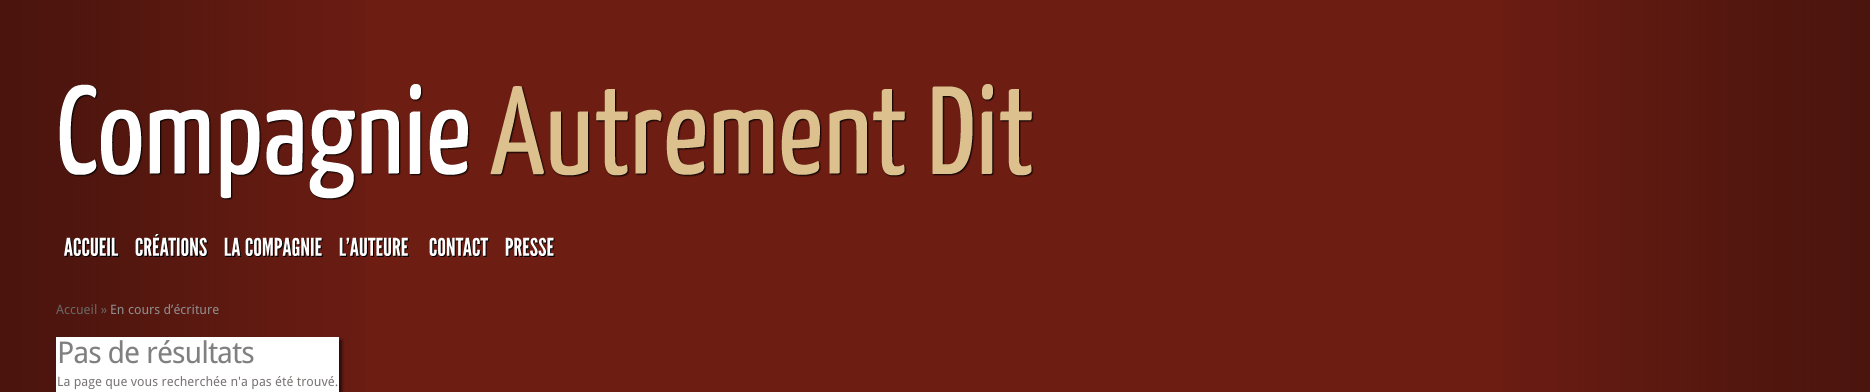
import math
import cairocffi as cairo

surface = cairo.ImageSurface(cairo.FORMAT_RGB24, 1870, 392)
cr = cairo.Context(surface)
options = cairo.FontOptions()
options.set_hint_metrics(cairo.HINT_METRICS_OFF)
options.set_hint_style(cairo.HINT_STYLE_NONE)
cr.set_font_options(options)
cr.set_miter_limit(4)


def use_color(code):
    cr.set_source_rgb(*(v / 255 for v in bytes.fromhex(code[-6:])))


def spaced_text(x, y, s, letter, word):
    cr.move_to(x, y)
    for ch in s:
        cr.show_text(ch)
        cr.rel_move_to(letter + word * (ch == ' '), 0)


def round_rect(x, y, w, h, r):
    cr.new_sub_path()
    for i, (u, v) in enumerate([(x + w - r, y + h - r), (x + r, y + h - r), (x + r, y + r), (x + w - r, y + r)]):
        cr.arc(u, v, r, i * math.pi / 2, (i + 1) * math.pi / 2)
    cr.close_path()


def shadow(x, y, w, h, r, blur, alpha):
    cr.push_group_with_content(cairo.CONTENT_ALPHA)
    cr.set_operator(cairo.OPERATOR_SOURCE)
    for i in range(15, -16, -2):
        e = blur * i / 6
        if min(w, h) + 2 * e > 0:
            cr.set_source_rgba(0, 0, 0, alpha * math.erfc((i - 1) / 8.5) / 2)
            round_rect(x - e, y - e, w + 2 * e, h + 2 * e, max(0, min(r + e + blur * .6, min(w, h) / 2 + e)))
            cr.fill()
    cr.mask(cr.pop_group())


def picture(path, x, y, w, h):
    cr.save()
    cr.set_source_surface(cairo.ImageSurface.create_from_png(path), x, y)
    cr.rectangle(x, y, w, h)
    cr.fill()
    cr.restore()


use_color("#6e1d12")
cr.paint()
picture("img1.png", 0, 0, 365, 392)
picture("img2.png", 1503, 0, 367, 392)
picture("img3.png", 59, 84, 975, 116)
picture("img4.png", 64, 237, 55, 20)
picture("img5.png", 135, 234, 73, 23)
picture("img6.png", 224, 237, 18, 20)
picture("img7.png", 245, 237, 78, 20)
picture("img8.png", 339, 237, 70, 20)
picture("img9.png", 429, 237, 61, 20)
picture("img10.png", 505, 237, 50, 20)
cr.select_font_face("Droid Sans")
cr.set_font_size(13)
use_color("#686767")
cr.move_to(56, 314)
cr.show_text("Accueil »")
use_color("#8e8e8e")
cr.move_to(110, 314)
cr.show_text("En cours d’écriture")
use_color("#000000")
shadow(59, 340, 283, 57, 0, 1.5, 0.6)
use_color("#ffffff")
cr.rectangle(56, 337, 283, 55)
cr.fill()
cr.set_font_size(30)
use_color("#808080")
spaced_text(57, 363, "Pas de résultats", -1, 0)
cr.set_font_size(13)
use_color("#7a7575")
cr.move_to(57, 386)
cr.show_text("La page que vous recherchée n'a pas été trouvé.")
surface.write_to_png("result.png")
